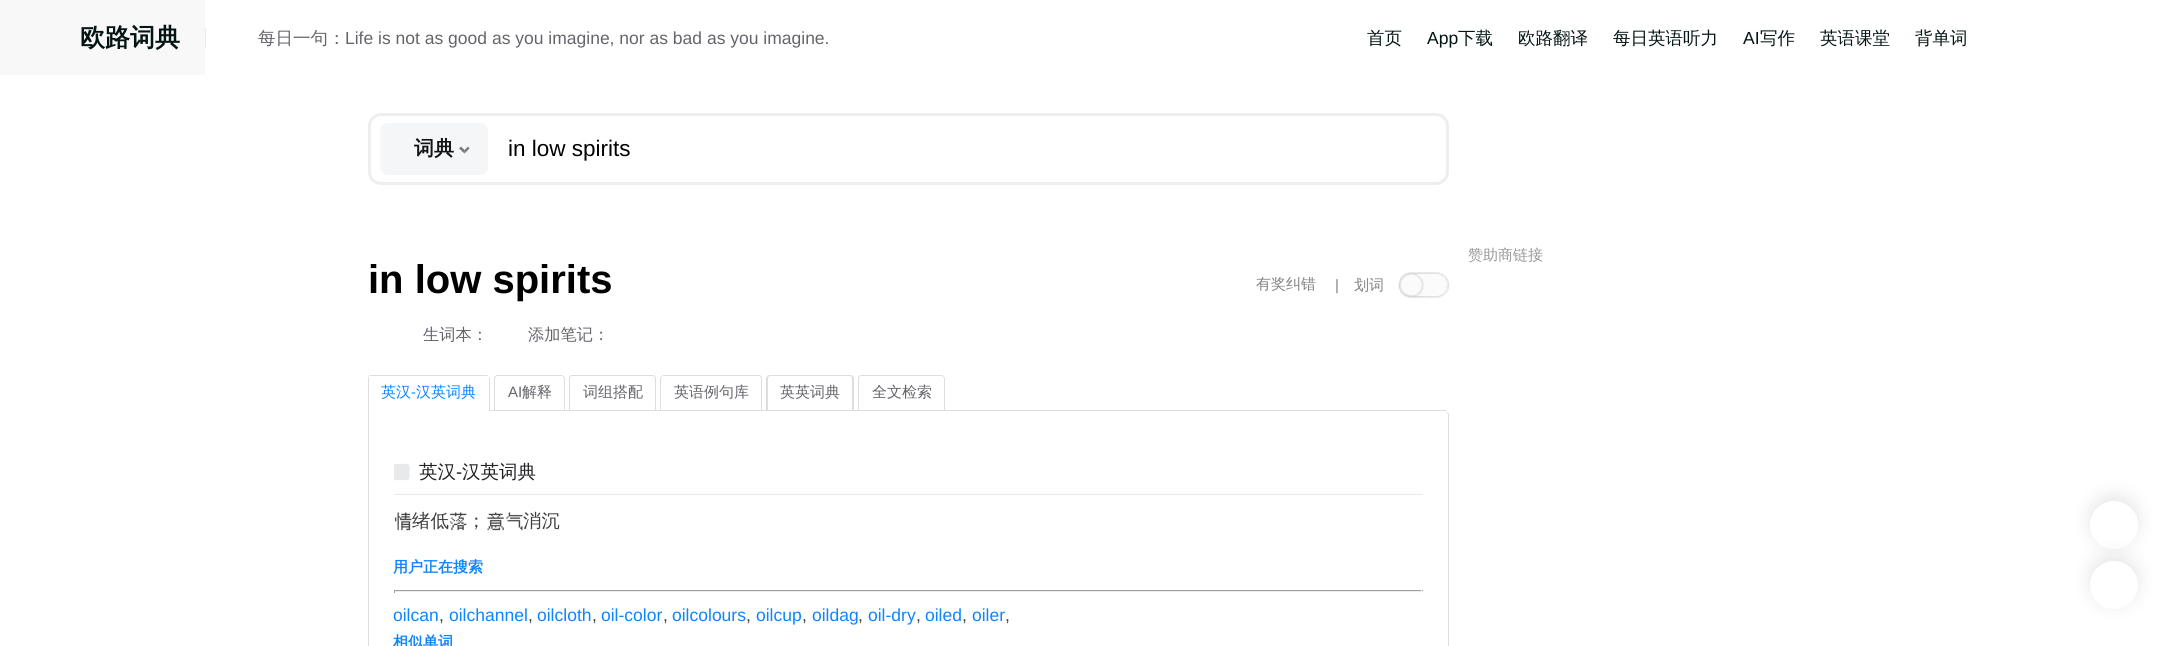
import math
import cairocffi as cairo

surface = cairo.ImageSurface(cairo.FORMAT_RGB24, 2184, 646)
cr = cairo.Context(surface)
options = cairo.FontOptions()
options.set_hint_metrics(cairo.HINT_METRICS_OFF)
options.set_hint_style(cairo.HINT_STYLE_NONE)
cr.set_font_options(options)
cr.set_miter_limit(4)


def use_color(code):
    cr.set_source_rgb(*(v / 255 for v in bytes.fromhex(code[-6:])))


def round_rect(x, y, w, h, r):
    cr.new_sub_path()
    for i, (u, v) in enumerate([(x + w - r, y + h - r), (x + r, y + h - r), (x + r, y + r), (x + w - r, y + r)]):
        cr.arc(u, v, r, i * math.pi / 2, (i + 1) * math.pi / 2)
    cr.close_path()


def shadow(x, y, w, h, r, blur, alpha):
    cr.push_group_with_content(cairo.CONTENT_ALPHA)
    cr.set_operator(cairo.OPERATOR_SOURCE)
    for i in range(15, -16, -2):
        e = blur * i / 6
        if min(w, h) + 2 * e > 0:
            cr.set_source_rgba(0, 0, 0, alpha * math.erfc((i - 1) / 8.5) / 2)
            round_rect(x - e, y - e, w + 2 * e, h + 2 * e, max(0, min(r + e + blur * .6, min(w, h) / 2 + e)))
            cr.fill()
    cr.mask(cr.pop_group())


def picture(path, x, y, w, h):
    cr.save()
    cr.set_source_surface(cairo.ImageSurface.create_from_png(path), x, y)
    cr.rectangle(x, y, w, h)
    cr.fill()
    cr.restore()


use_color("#ffffff")
cr.paint()
use_color("#f8f8f8")
cr.rectangle(0, 0, 205, 75)
cr.fill()
cr.select_font_face("WenQuanYi Zen Hei", cairo.FONT_SLANT_NORMAL, cairo.FONT_WEIGHT_BOLD)
cr.set_font_size(25)
use_color("#041413")
cr.move_to(80, 46)
cr.show_text("欧路词典")
use_color("#e8e9eb")
cr.rectangle(205, 28, 1, 20)
cr.fill()
cr.select_font_face("WenQuanYi Zen Hei Medium")
cr.set_font_size(17.5)
use_color("#63656b")
cr.move_to(258, 44)
cr.show_text("每日一句：")
cr.select_font_face("Liberation Sans")
cr.move_to(345, 44)
cr.show_text("Life is not as good as you imagine, nor as bad as you imagine.")
cr.select_font_face("WenQuanYi Zen Hei Medium")
use_color("#041413")
cr.move_to(1367, 44)
cr.show_text("首页")
cr.select_font_face("Liberation Sans")
cr.move_to(1427, 44)
cr.show_text("App")
cr.select_font_face("WenQuanYi Zen Hei Medium")
cr.move_to(1458, 44)
cr.show_text("下载")
cr.move_to(1518, 44)
cr.show_text("欧路翻译")
cr.move_to(1613, 44)
cr.show_text("每日英语听力")
cr.select_font_face("Liberation Sans")
cr.move_to(1743, 44)
cr.show_text("AI")
cr.select_font_face("WenQuanYi Zen Hei Medium")
cr.move_to(1760, 44)
cr.show_text("写作")
cr.move_to(1820, 44)
cr.show_text("英语课堂")
cr.move_to(1915, 44)
cr.show_text("背单词")
round_rect(369.5, 114.5, 1078, 69, 11.5)
use_color("#eeeeee")
cr.set_line_width(3)
cr.stroke()
use_color("#f5f6f7")
round_rect(380, 123, 108, 52, 8)
cr.fill()
cr.select_font_face("WenQuanYi Zen Hei", cairo.FONT_SLANT_NORMAL, cairo.FONT_WEIGHT_BOLD)
cr.set_font_size(20)
use_color("#131415")
cr.move_to(414, 155)
cr.show_text("词典")
use_color("#7b7b7c")
cr.new_path()
cr.move_to(469.5, 148.5)
cr.line_to(464.5, 153.5)
cr.line_to(464.5, 150)
cr.line_to(468, 146.5)
cr.close_path()
cr.fill()
cr.set_source_rgba(0, 0, 0, 0.5)
cr.new_path()
cr.move_to(464.5, 153.5)
cr.line_to(459, 148.5)
cr.line_to(461, 146.5)
cr.line_to(464.5, 150)
cr.close_path()
cr.fill()
cr.select_font_face("Liberation Sans")
cr.set_font_size(22.5)
use_color("#000000")
cr.move_to(508, 156)
cr.show_text("in low spirits")
cr.select_font_face("WenQuanYi Zen Hei Medium")
cr.set_font_size(15)
use_color("#999999")
cr.move_to(1468, 260)
cr.show_text("赞助商链接")
use_color("#000000")
shadow(2090, 496, 48, 48, 24, 9, 0.1)
use_color("#ffffff")
cr.arc(2114, 525, 24, 0, 2 * math.pi)
cr.fill()
use_color("#000000")
shadow(2090, 556, 48, 48, 24, 9, 0.1)
use_color("#ffffff")
cr.arc(2114, 585, 24, 0, 2 * math.pi)
cr.fill()
cr.select_font_face("Liberation Sans", cairo.FONT_SLANT_NORMAL, cairo.FONT_WEIGHT_BOLD)
cr.set_font_size(40)
use_color("#000000")
cr.move_to(368, 293)
cr.show_text("in low spirits")
cr.select_font_face("WenQuanYi Zen Hei Medium")
cr.set_font_size(15)
use_color("#838383")
cr.move_to(1256, 289)
cr.show_text("有奖纠错")
cr.select_font_face("Liberation Sans")
cr.move_to(1335, 290)
cr.show_text("|")
cr.select_font_face("WenQuanYi Zen Hei Medium")
cr.move_to(1354, 290)
cr.show_text("划词")
picture("img1.png", 1398, 272, 51, 26)
cr.set_font_size(16.25)
use_color("#63656b")
cr.move_to(423, 340)
cr.show_text("生词本：")
cr.move_to(528, 340)
cr.show_text("添加笔记：")
use_color("#dddddd")
cr.rectangle(490, 410, 956, 1)
cr.fill()
cr.set_fill_rule(cairo.FILL_RULE_EVEN_ODD)
cr.new_path()
cr.move_to(371, 375)
cr.line_to(486, 375)
cr.curve_to(488, 375, 490, 377, 490, 379)
cr.line_to(490, 411)
cr.line_to(368, 411)
cr.line_to(368, 379)
cr.curve_to(368, 377, 369, 375, 371, 375)
cr.close_path()
cr.move_to(371, 376)
cr.line_to(486, 376)
cr.curve_to(488, 376, 489, 377, 489, 379)
cr.line_to(489, 411)
cr.line_to(369, 411)
cr.line_to(369, 379)
cr.curve_to(369, 377, 370, 376, 371, 376)
cr.close_path()
cr.fill()
use_color("#ffffff")
cr.rectangle(369, 376, 120, 2)
cr.fill()
cr.set_font_size(15)
use_color("#0d85ff")
cr.move_to(381, 397)
cr.show_text("英汉")
cr.select_font_face("Liberation Sans")
cr.move_to(411, 397)
cr.show_text("-")
cr.select_font_face("WenQuanYi Zen Hei Medium")
cr.move_to(416, 397)
cr.show_text("汉英词典")
use_color("#dddddd")
cr.new_path()
cr.move_to(498, 375)
cr.line_to(561, 375)
cr.curve_to(563, 375, 565, 377, 565, 379)
cr.line_to(565, 410)
cr.line_to(494, 410)
cr.line_to(494, 379)
cr.curve_to(494, 377, 495, 375, 498, 375)
cr.close_path()
cr.move_to(498, 376)
cr.line_to(561, 376)
cr.curve_to(563, 376, 564, 377, 564, 379)
cr.line_to(564, 410)
cr.line_to(495, 410)
cr.line_to(495, 379)
cr.curve_to(495, 377, 496, 376, 498, 376)
cr.close_path()
cr.fill()
cr.select_font_face("Liberation Sans")
use_color("#63656b")
cr.move_to(508, 397)
cr.show_text("AI")
cr.select_font_face("WenQuanYi Zen Hei Medium")
cr.move_to(522, 397)
cr.show_text("解释")
use_color("#dddddd")
cr.new_path()
cr.move_to(572, 375)
cr.line_to(652, 375)
cr.curve_to(655, 375, 656, 377, 656, 379)
cr.line_to(656, 410)
cr.line_to(569, 410)
cr.line_to(569, 379)
cr.curve_to(569, 377, 570, 375, 572, 375)
cr.close_path()
cr.move_to(572, 376)
cr.line_to(652, 376)
cr.curve_to(654, 376, 655, 377, 655, 379)
cr.line_to(655, 410)
cr.line_to(570, 410)
cr.line_to(570, 379)
cr.curve_to(570, 377, 571, 376, 572, 376)
cr.close_path()
cr.fill()
use_color("#63656b")
cr.move_to(583, 397)
cr.show_text("词组搭配")
use_color("#dddddd")
cr.new_path()
cr.move_to(664, 375)
cr.line_to(759, 375)
cr.curve_to(761, 375, 762, 377, 762, 379)
cr.line_to(762, 410)
cr.line_to(660, 410)
cr.line_to(660, 379)
cr.curve_to(660, 377, 662, 375, 664, 375)
cr.close_path()
cr.move_to(664, 376)
cr.line_to(759, 376)
cr.curve_to(760, 376, 761, 377, 761, 379)
cr.line_to(761, 410)
cr.line_to(661, 410)
cr.line_to(661, 379)
cr.curve_to(661, 377, 662, 376, 664, 376)
cr.close_path()
cr.fill()
use_color("#63656b")
cr.move_to(674, 397)
cr.show_text("英语例句库")
use_color("#dddddd")
cr.new_path()
cr.move_to(770, 375)
cr.line_to(850, 375)
cr.curve_to(852, 375, 854, 377, 854, 379)
cr.line_to(854, 410)
cr.line_to(766, 410)
cr.line_to(766, 379)
cr.curve_to(766, 377, 768, 375, 770, 375)
cr.close_path()
cr.move_to(770, 376)
cr.line_to(850, 376)
cr.curve_to(851, 376, 852, 377, 852, 379)
cr.line_to(852, 410)
cr.line_to(768, 410)
cr.line_to(768, 379)
cr.curve_to(768, 377, 769, 376, 770, 376)
cr.close_path()
cr.fill()
use_color("#63656b")
cr.move_to(780, 397)
cr.show_text("英英词典")
use_color("#dddddd")
cr.new_path()
cr.move_to(861, 375)
cr.line_to(941, 375)
cr.curve_to(943, 375, 945, 377, 945, 379)
cr.line_to(945, 410)
cr.line_to(858, 410)
cr.line_to(858, 379)
cr.curve_to(858, 377, 859, 375, 861, 375)
cr.close_path()
cr.move_to(861, 376)
cr.line_to(941, 376)
cr.curve_to(943, 376, 944, 377, 944, 379)
cr.line_to(944, 410)
cr.line_to(859, 410)
cr.line_to(859, 379)
cr.curve_to(859, 377, 860, 376, 861, 376)
cr.close_path()
cr.fill()
use_color("#63656b")
cr.move_to(872, 397)
cr.show_text("全文检索")
use_color("#dddddd")
cr.new_path()
cr.move_to(368, 411)
cr.line_to(1445, 411)
cr.curve_to(1447, 411, 1449, 413, 1449, 415)
cr.line_to(1449, 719)
cr.curve_to(1449, 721, 1447, 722, 1445, 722)
cr.line_to(371, 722)
cr.curve_to(369, 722, 368, 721, 368, 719)
cr.close_path()
cr.move_to(369, 411)
cr.line_to(1445, 411)
cr.curve_to(1446, 411, 1448, 413, 1448, 415)
cr.line_to(1448, 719)
cr.curve_to(1448, 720, 1446, 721, 1445, 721)
cr.line_to(371, 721)
cr.curve_to(370, 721, 369, 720, 369, 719)
cr.close_path()
cr.fill()
use_color("#e8e9eb")
cr.rectangle(394, 494, 1029, 1)
cr.fill()
cr.save()
cr.set_fill_rule(cairo.FILL_RULE_WINDING)
cr.rectangle(394, 461, 1029, 33)
cr.clip()
cr.new_path()
cr.move_to(409.5, 466.5)
cr.line_to(409.5, 476)
cr.curve_to(409.5, 481.5, 406.5, 480, 401.5, 480)
cr.curve_to(399, 480, 393.5, 481.5, 393, 477.5)
cr.line_to(393, 468.5)
cr.curve_to(393, 462.5, 396, 464, 401.5, 464)
cr.curve_to(403.5, 464, 409.5, 462.5, 409.5, 466.5)
cr.close_path()
cr.fill()
cr.restore()
cr.set_font_size(18.5)
use_color("#202124")
cr.move_to(419, 478)
cr.show_text("英汉")
cr.select_font_face("Liberation Sans")
cr.move_to(456, 478)
cr.show_text("-")
cr.select_font_face("WenQuanYi Zen Hei Medium")
cr.move_to(462, 478)
cr.show_text("汉英词典")
picture("img2.png", 394, 512, 18, 19)
use_color("#3e3e3e")
cr.move_to(412, 527)
cr.show_text("绪低")
picture("img3.png", 449, 512, 18, 19)
cr.move_to(467, 527)
cr.show_text("；")
picture("img4.png", 487, 512, 17, 19)
picture("img5.png", 506, 512, 17, 19)
cr.move_to(523, 527)
cr.show_text("消沉")
cr.select_font_face("WenQuanYi Zen Hei", cairo.FONT_SLANT_NORMAL, cairo.FONT_WEIGHT_BOLD)
cr.set_font_size(15)
use_color("#0d85ff")
cr.move_to(393, 572)
cr.show_text("用户正在搜索")
use_color("#9f9f9f")
cr.rectangle(394, 590, 1029, 1)
cr.fill()
use_color("#eeeeee")
cr.rectangle(1421, 590, 1, 3)
cr.fill()
cr.rectangle(394, 591, 1029, 1)
cr.fill()
use_color("#9f9f9f")
cr.rectangle(394, 590, 1, 3)
cr.fill()
cr.select_font_face("Liberation Sans")
cr.set_font_size(17.5)
use_color("#0d85ff")
cr.move_to(393, 621)
cr.show_text("oilcan")
use_color("#444444")
cr.move_to(439, 621)
cr.show_text(",")
use_color("#0d85ff")
cr.move_to(449, 621)
cr.show_text("oilchannel")
use_color("#444444")
cr.move_to(528, 621)
cr.show_text(",")
use_color("#0d85ff")
cr.move_to(537, 621)
cr.show_text("oilcloth")
use_color("#444444")
cr.move_to(592, 621)
cr.show_text(",")
use_color("#0d85ff")
cr.move_to(601, 621)
cr.show_text("oil-color")
use_color("#444444")
cr.move_to(663, 621)
cr.show_text(",")
use_color("#0d85ff")
cr.move_to(672, 621)
cr.show_text("oilcolours")
use_color("#444444")
cr.move_to(746, 621)
cr.show_text(",")
use_color("#0d85ff")
cr.move_to(756, 621)
cr.show_text("oilcup")
use_color("#444444")
cr.move_to(802, 621)
cr.show_text(",")
use_color("#0d85ff")
cr.move_to(812, 621)
cr.show_text("oildag")
use_color("#444444")
cr.move_to(858, 621)
cr.show_text(",")
use_color("#0d85ff")
cr.move_to(868, 621)
cr.show_text("oil-dry")
use_color("#444444")
cr.move_to(916, 621)
cr.show_text(",")
use_color("#0d85ff")
cr.move_to(925, 621)
cr.show_text("oiled")
use_color("#444444")
cr.move_to(962, 621)
cr.show_text(",")
use_color("#0d85ff")
cr.move_to(972, 621)
cr.show_text("oiler")
use_color("#444444")
cr.move_to(1005, 621)
cr.show_text(",")
cr.select_font_face("WenQuanYi Zen Hei", cairo.FONT_SLANT_NORMAL, cairo.FONT_WEIGHT_BOLD)
cr.set_font_size(15)
use_color("#0d85ff")
cr.move_to(393, 647)
cr.show_text("相似单词")
surface.write_to_png("result.png")
